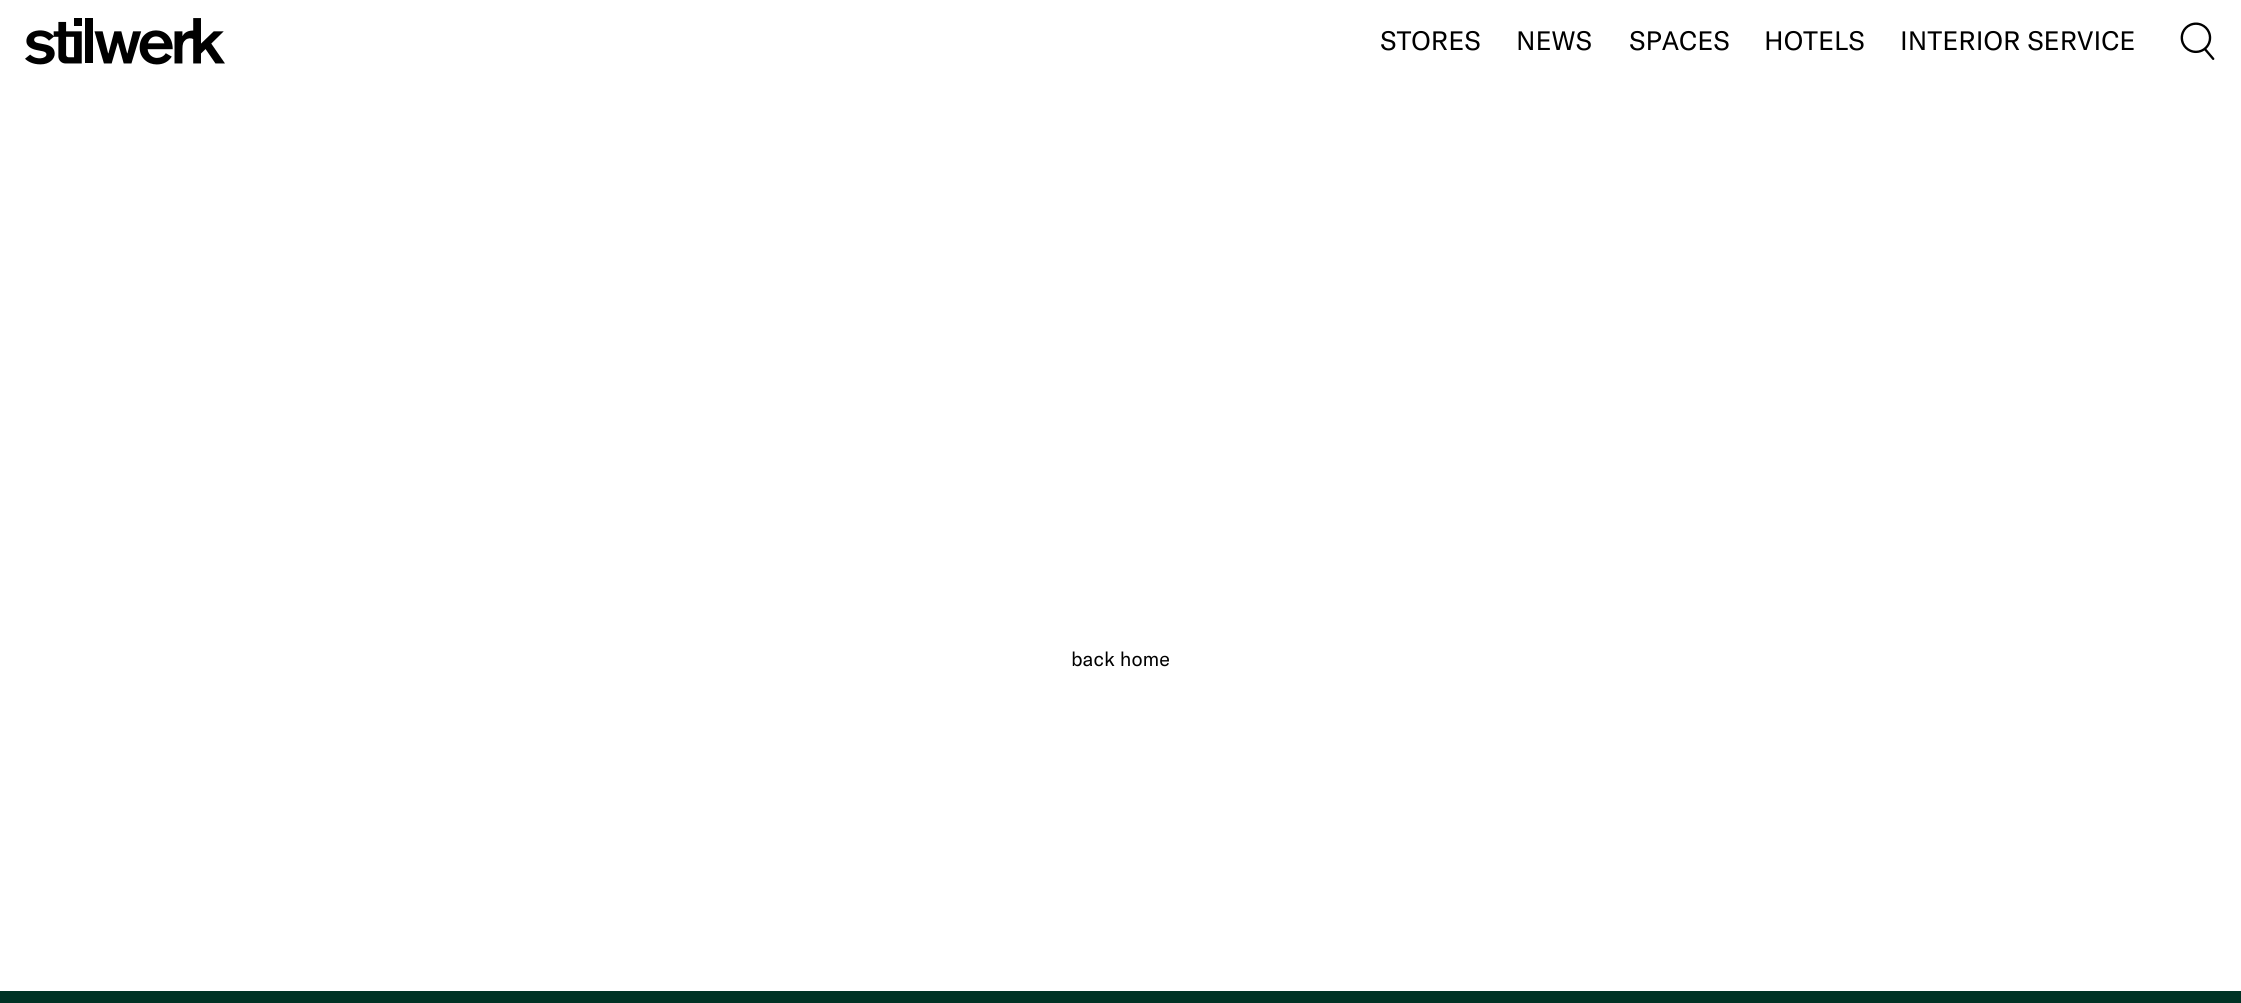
import math
import cairocffi as cairo

surface = cairo.ImageSurface(cairo.FORMAT_RGB24, 2241, 1003)
cr = cairo.Context(surface)
options = cairo.FontOptions()
options.set_hint_metrics(cairo.HINT_METRICS_OFF)
options.set_hint_style(cairo.HINT_STYLE_NONE)
cr.set_font_options(options)
cr.set_miter_limit(4)


def use_color(code):
    cr.set_source_rgb(*(v / 255 for v in bytes.fromhex(code[-6:])))


def picture(path, x, y, w, h):
    cr.save()
    cr.set_source_surface(cairo.ImageSurface.create_from_png(path), x, y)
    cr.rectangle(x, y, w, h)
    cr.fill()
    cr.restore()


use_color("#ffffff")
cr.paint()
picture("img1.png", 25, 18, 200, 47)
cr.select_font_face("GT America")
cr.set_font_size(26.25)
use_color("#000000")
cr.move_to(1380, 50)
cr.show_text("STORES")
cr.move_to(1516, 50)
cr.show_text("NEWS")
cr.move_to(1629, 50)
cr.show_text("SPACES")
cr.move_to(1764, 50)
cr.show_text("HOTELS")
cr.move_to(1900, 50)
cr.show_text("INTERIOR SERVICE")
picture("img2.png", 2180, 22, 35, 38)
cr.set_font_size(20)
cr.move_to(1071, 666)
cr.show_text("back home")
use_color("#003325")
cr.rectangle(0, 991, 2241, 12)
cr.fill()
surface.write_to_png("result.png")
